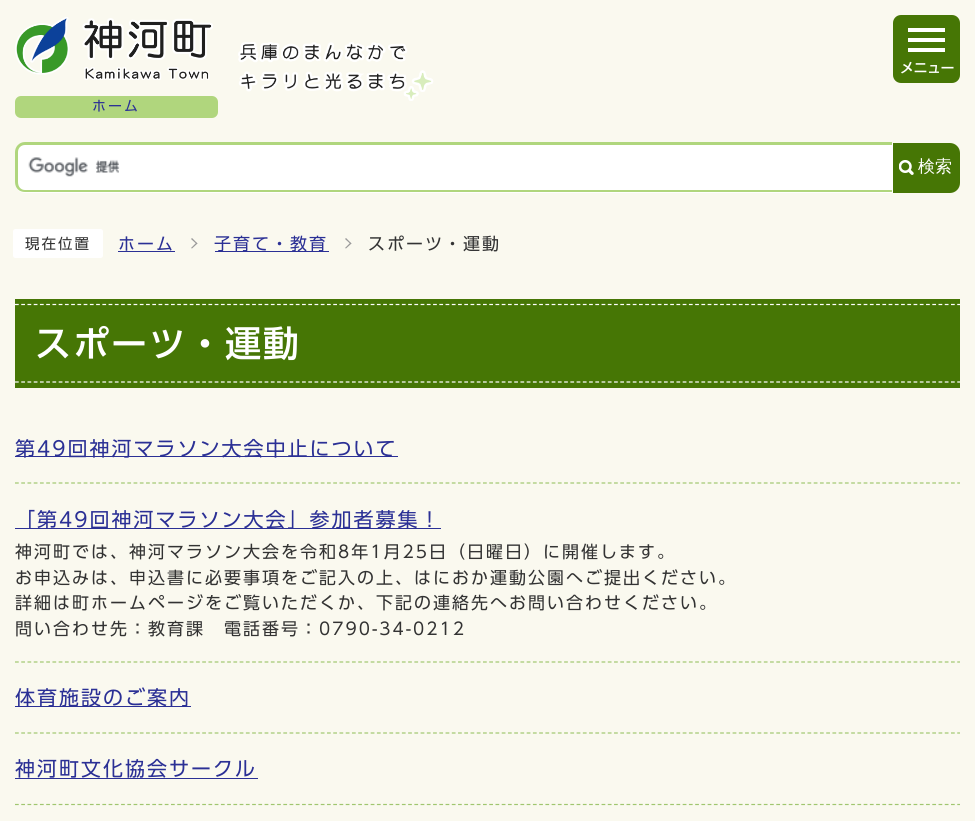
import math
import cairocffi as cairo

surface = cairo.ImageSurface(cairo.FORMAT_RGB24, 975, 821)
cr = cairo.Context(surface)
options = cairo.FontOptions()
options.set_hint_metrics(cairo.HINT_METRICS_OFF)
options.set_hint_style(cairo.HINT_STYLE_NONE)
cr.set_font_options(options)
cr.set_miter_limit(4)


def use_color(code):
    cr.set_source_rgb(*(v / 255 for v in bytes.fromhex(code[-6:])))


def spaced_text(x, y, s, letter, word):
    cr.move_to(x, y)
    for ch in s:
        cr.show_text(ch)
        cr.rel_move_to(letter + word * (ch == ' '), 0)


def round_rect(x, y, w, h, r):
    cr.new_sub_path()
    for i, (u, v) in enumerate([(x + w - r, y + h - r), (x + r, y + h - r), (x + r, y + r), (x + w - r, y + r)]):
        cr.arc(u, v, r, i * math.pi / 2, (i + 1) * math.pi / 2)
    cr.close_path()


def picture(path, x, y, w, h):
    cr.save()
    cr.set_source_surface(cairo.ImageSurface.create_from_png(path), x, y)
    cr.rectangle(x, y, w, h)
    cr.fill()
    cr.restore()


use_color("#faf9ef")
cr.paint()
use_color("#467605")
round_rect(893, 15, 67, 68, 8)
cr.fill()
use_color("#ffffff")
cr.rectangle(908, 28, 37, 4)
cr.fill()
cr.rectangle(908, 38, 37, 4)
cr.fill()
cr.rectangle(908, 48, 37, 4)
cr.fill()
cr.select_font_face("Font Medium")
cr.set_font_size(14)
spaced_text(900, 73, "メニュー", -0.5, 0)
picture("img1.png", 238, 42, 196, 59)
picture("img2.png", 15, 17, 198, 63)
use_color("#b0d67d")
round_rect(15, 96, 203, 22, 6)
cr.fill()
cr.select_font_face("Font")
use_color("#2b3095")
spaced_text(92, 111, "ホーム", 2, 0)
use_color("#ffffff")
cr.new_path()
cr.move_to(25, 143)
cr.line_to(893, 143)
cr.line_to(893, 193)
cr.line_to(25, 193)
cr.curve_to(19.5, 193, 15, 188.5, 15, 183)
cr.line_to(15, 153)
cr.curve_to(15, 147.5, 19.5, 143, 25, 143)
cr.close_path()
cr.fill()
picture("img3.png", 28, 157, 92, 20)
use_color("#b0d67d")
cr.set_fill_rule(cairo.FILL_RULE_EVEN_ODD)
cr.new_path()
cr.move_to(25, 142)
cr.line_to(892, 142)
cr.line_to(892, 192)
cr.line_to(25, 192)
cr.curve_to(19, 192, 15, 188, 15, 182)
cr.line_to(15, 152)
cr.curve_to(15, 147, 19, 142, 25, 142)
cr.close_path()
cr.move_to(25, 145)
cr.line_to(892, 145)
cr.line_to(892, 190)
cr.line_to(25, 190)
cr.curve_to(21, 190, 18, 187, 18, 182)
cr.line_to(18, 152)
cr.curve_to(18, 148, 21, 145, 25, 145)
cr.close_path()
cr.fill()
use_color("#467605")
cr.new_path()
cr.move_to(893, 143)
cr.line_to(950, 143)
cr.curve_to(955.5, 143, 960, 147.5, 960, 153)
cr.line_to(960, 183)
cr.curve_to(960, 188.5, 955.5, 193, 950, 193)
cr.line_to(893, 193)
cr.close_path()
cr.fill()
picture("img4.png", 899, 160, 15, 15)
cr.select_font_face("WenQuanYi Zen Hei Medium")
cr.set_font_size(17)
use_color("#ffffff")
cr.move_to(918, 172)
cr.show_text("検索")
round_rect(13, 229, 90, 29, 2.5)
cr.fill()
cr.select_font_face("Font")
cr.set_font_size(14.5)
use_color("#333333")
spaced_text(25, 249, "現在位置", 2, 0)
cr.set_font_size(17)
use_color("#2b3095")
spaced_text(118, 250, "ホーム", 2, 0)
cr.rectangle(118, 251, 57, 1)
cr.fill()
use_color("#999999")
cr.set_fill_rule(cairo.FILL_RULE_WINDING)
cr.new_path()
cr.move_to(191, 239)
cr.line_to(192, 238)
cr.line_to(197.5, 243.5)
cr.line_to(196.5, 244)
cr.close_path()
cr.fill()
cr.new_path()
cr.move_to(191, 248)
cr.line_to(196.5, 242.5)
cr.line_to(197.5, 243.5)
cr.line_to(192, 248.5)
cr.close_path()
cr.fill()
use_color("#2b3095")
cr.rectangle(215, 251, 114, 1)
cr.fill()
spaced_text(214, 250, "子育て・教育", 2, 0)
use_color("#999999")
cr.new_path()
cr.move_to(345, 239)
cr.line_to(346, 238)
cr.line_to(351.5, 243.5)
cr.line_to(350.5, 244)
cr.close_path()
cr.fill()
cr.new_path()
cr.move_to(345, 248)
cr.line_to(350.5, 242.5)
cr.line_to(351.5, 243.5)
cr.line_to(346, 248.5)
cr.close_path()
cr.fill()
use_color("#333333")
spaced_text(368, 250, "スポーツ・運動", 2, 0)
use_color("#467605")
cr.rectangle(15, 299, 945, 89)
cr.fill()
cr.new_path()
cr.move_to(15, 304.5)
cr.line_to(960, 304.5)
use_color("#ffffff")
cr.set_line_width(1.2)
cr.set_dash([3.75, 2.49])
cr.stroke()
cr.select_font_face("Font Medium")
cr.set_font_size(36)
spaced_text(35, 357, "スポーツ・運動", 2, 0)
cr.new_path()
cr.move_to(15, 382)
cr.line_to(960, 382)
cr.stroke()
cr.new_path()
cr.move_to(15, 483)
cr.line_to(960, 483)
use_color("#a0c66f")
cr.stroke()
use_color("#2b3095")
cr.rectangle(15, 456, 383, 1)
cr.fill()
cr.select_font_face("Font")
cr.set_font_size(20)
spaced_text(15, 456, "第49回神河マラソン大会中止について", 2, 0)
cr.new_path()
cr.move_to(15, 662)
cr.line_to(960, 662)
use_color("#a0c66f")
cr.stroke()
use_color("#2b3095")
cr.rectangle(15, 528, 426, 1)
cr.fill()
spaced_text(15, 527, "「第49回神河マラソン大会」参加者募集！", 2, 0)
cr.set_font_size(17)
use_color("#333333")
spaced_text(15, 558, "神河町では、神河マラソン大会を令和8年1月25日（日曜日）に開催します。", 2, 0)
spaced_text(15, 584, "お申込みは、申込書に必要事項をご記入の上、はにおか運動公園へご提出ください。", 2, 0)
spaced_text(15, 609, "詳細は町ホームページをご覧いただくか、下記の連絡先へお問い合わせください。", 2, 0)
spaced_text(15, 635, "問い合わせ先：教育課　電話番号：0790-34-0212", 2, 0)
cr.new_path()
cr.move_to(15, 733)
cr.line_to(960, 733)
use_color("#a0c66f")
cr.stroke()
use_color("#2b3095")
cr.rectangle(15, 706, 176, 1)
cr.fill()
cr.set_font_size(20)
spaced_text(15, 705, "体育施設のご案内", 2, 0)
cr.new_path()
cr.move_to(15, 804.5)
cr.line_to(960, 804.5)
use_color("#a0c66f")
cr.stroke()
use_color("#2b3095")
spaced_text(15, 776, "神河町文化協会サークル", 2, 0)
cr.rectangle(15, 778, 243, 1)
cr.fill()
surface.write_to_png("result.png")
